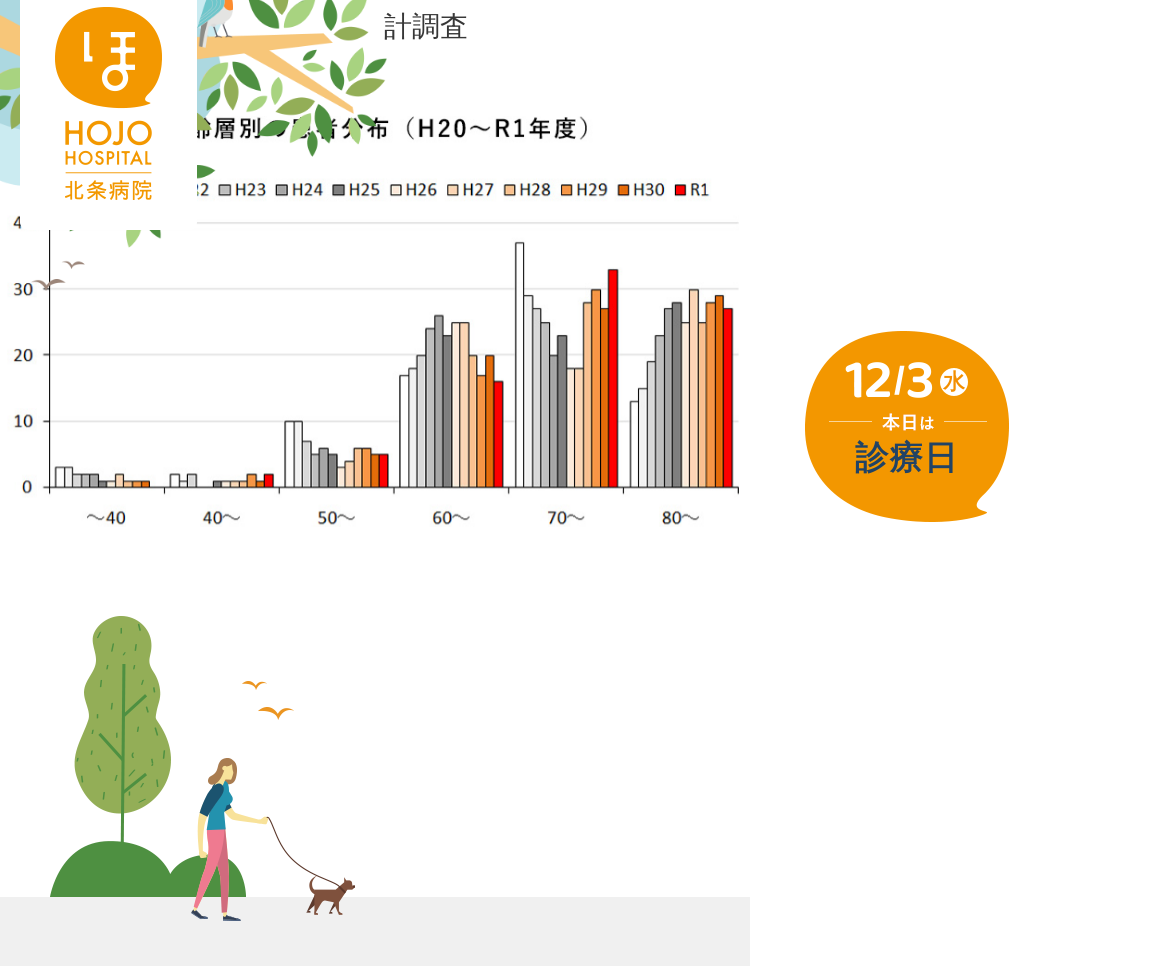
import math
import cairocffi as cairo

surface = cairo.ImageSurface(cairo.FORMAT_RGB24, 1171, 966)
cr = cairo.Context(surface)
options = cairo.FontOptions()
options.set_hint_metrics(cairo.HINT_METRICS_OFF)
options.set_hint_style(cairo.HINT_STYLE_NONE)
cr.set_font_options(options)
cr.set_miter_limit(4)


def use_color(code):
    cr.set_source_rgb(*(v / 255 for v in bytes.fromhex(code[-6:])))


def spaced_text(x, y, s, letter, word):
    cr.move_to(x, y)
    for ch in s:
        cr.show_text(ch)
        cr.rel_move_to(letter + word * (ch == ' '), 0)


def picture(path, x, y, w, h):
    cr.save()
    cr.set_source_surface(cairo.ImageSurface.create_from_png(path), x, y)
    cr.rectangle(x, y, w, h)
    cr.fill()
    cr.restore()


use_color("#ffffff")
cr.paint()
cr.select_font_face("WenQuanYi Zen Hei Medium")
cr.set_font_size(28)
use_color("#373737")
cr.move_to(384, 36)
cr.show_text("計調査")
picture("img3.png", 7, 116, 732, 411)
picture("img1.png", 0, 0, 387, 291)
picture("img2.png", 20, 0, 177, 230)
picture("img4.png", 805, 331, 204, 191)
cr.select_font_face("Baloo Bhai 2 SemiBold")
cr.set_font_size(56)
use_color("#ffffff")
spaced_text(845, 397, "12", -2, 0)
cr.select_font_face("Liberation Sans", cairo.FONT_SLANT_NORMAL, cairo.FONT_WEIGHT_BOLD)
cr.set_font_size(39)
spaced_text(894, 394, "/", -2, 0)
cr.select_font_face("Baloo Bhai 2 SemiBold")
cr.set_font_size(56)
spaced_text(906, 397, "3", -2, 0)
cr.new_path()
cr.arc(954, 382, 14, 0, 2 * math.pi)
cr.fill()
cr.select_font_face("WenQuanYi Zen Hei", cairo.FONT_SLANT_NORMAL, cairo.FONT_WEIGHT_BOLD)
cr.set_font_size(22)
use_color("#f38f00")
cr.move_to(943, 389)
cr.show_text("水")
cr.set_font_size(33.5)
use_color("#214365")
spaced_text(855, 469, "診療日", 1, 0)
use_color("#f0f0f0")
cr.rectangle(0, 897, 750, 69)
cr.fill()
picture("img5.png", 50, 616, 305, 305)
surface.write_to_png("result.png")
